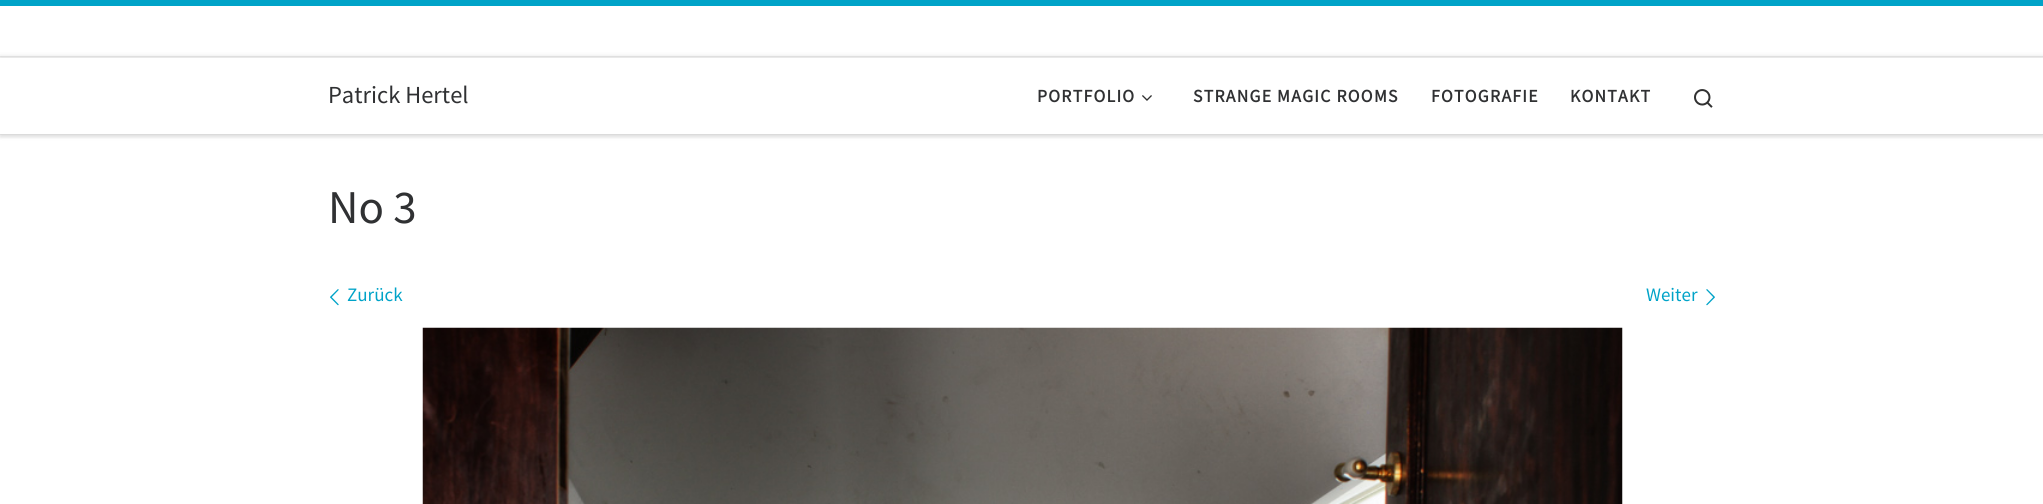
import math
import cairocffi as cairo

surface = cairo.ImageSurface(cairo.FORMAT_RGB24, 2043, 504)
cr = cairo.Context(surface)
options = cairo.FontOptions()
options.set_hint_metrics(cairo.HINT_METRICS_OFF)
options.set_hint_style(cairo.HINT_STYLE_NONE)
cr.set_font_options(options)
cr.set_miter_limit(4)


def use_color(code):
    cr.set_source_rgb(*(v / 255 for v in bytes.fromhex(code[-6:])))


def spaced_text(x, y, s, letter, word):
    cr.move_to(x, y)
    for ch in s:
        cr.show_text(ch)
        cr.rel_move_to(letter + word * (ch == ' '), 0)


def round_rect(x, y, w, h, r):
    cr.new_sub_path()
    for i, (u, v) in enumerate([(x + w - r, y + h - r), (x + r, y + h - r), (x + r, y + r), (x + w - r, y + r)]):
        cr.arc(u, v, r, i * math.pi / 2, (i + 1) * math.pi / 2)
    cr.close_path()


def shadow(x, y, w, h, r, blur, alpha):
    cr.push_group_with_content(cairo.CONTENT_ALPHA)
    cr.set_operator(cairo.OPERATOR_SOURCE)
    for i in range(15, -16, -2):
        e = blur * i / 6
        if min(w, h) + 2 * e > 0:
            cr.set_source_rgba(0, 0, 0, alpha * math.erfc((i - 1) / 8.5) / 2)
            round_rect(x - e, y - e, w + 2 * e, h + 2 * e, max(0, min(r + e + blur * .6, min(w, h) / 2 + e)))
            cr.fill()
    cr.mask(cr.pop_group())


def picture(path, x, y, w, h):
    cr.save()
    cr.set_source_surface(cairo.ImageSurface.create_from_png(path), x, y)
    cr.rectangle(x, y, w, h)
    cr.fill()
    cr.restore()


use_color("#ffffff")
cr.paint()
cr.save()
cr.rectangle(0, 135, 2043, 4)
cr.clip()
use_color("#666666")
shadow(0, 3, 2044, 135, 0, 1, 0.08)
cr.restore()
use_color("#00a3c8")
cr.rectangle(0, 0, 2043, 6)
cr.fill()
use_color("#ececec")
cr.rectangle(0, 56, 2043, 1)
cr.fill()
use_color("#efefef")
cr.new_path()
cr.move_to(0, 134)
cr.line_to(0, 135)
cr.line_to(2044, 135)
cr.line_to(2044, 59)
cr.line_to(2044, 134)
cr.close_path()
cr.fill()
use_color("#000000")
shadow(0, 58, 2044, 76, 0, 3, 0.2)
use_color("#ffffff")
cr.rectangle(0, 58, 2043, 76)
cr.fill()
cr.select_font_face("Source Sans Pro")
cr.set_font_size(24.5)
use_color("#303133")
cr.move_to(328, 103)
cr.show_text("Patrick Hertel")
cr.select_font_face("Source Sans Pro", cairo.FONT_SLANT_NORMAL, cairo.FONT_WEIGHT_BOLD)
cr.set_font_size(17.75)
spaced_text(1037, 102, "PORTFOLIO", 1.25, 0)
picture("img1.png", 1142, 95, 10, 6)
spaced_text(1193, 102, "STRANGE MAGIC ROOMS", 1.25, 0)
spaced_text(1431, 102, "FOTOGRAFIE", 1.25, 0)
spaced_text(1570, 102, "KONTAKT", 1.25, 0)
picture("img2.png", 1694, 89, 19, 19)
cr.select_font_face("Source Sans Pro")
cr.set_font_size(47)
cr.move_to(328, 223)
cr.show_text("No 3")
picture("img3.png", 330, 289, 9, 17)
cr.set_font_size(19)
use_color("#00a3c8")
cr.move_to(347, 301)
cr.show_text("Zurück")
cr.move_to(1646, 301)
cr.show_text("Weiter")
picture("img4.png", 1706, 289, 9, 17)
picture("img5.png", 422, 327, 1201, 177)
surface.write_to_png("result.png")
